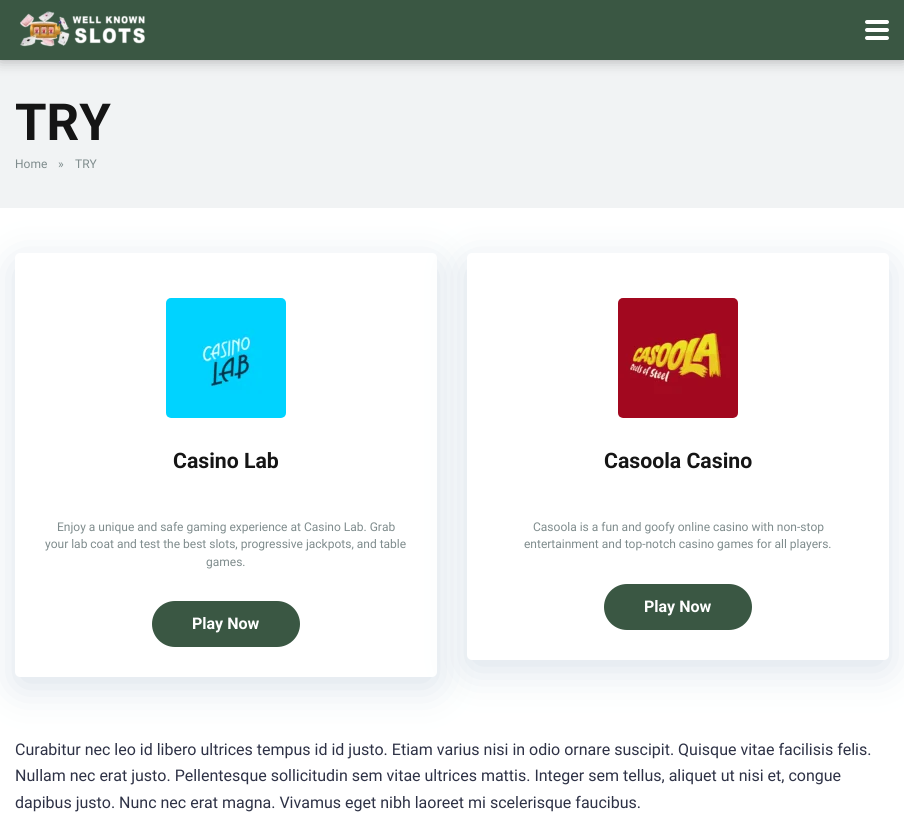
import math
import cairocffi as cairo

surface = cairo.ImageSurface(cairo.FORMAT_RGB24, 904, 827)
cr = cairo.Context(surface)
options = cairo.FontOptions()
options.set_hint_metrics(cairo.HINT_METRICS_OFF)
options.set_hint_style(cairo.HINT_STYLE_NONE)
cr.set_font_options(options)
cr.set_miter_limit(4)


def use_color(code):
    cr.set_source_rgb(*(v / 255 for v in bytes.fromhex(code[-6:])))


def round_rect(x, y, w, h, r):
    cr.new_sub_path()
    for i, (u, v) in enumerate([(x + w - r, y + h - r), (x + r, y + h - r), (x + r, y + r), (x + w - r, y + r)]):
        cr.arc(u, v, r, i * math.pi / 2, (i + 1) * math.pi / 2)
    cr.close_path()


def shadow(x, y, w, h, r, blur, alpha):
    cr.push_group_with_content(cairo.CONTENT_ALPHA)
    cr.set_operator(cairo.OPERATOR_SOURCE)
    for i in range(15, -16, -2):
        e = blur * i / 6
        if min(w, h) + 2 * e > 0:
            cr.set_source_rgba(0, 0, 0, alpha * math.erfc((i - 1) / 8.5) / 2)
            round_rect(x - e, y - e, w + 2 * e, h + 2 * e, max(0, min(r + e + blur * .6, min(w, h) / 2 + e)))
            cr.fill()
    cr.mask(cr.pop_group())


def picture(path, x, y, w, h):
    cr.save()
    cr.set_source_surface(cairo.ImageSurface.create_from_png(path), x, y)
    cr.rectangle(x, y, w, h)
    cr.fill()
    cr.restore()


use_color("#ffffff")
cr.paint()
use_color("#f1f3f4")
cr.rectangle(0, 60, 904, 148)
cr.fill()
use_color("#000000")
shadow(0, 0, 904, 60, 0, 7.5, 0.3)
use_color("#3a5743")
cr.rectangle(0, 0, 904, 60)
cr.fill()
picture("img1.png", 20, 11, 125, 36)
use_color("#ffffff")
round_rect(865, 20, 24, 4, 2)
cr.fill()
round_rect(865, 28, 24, 4, 2)
cr.fill()
round_rect(865, 36, 24, 4, 2)
cr.fill()
cr.select_font_face("Roboto", cairo.FONT_SLANT_NORMAL, cairo.FONT_WEIGHT_BOLD)
cr.set_font_size(51)
use_color("#151515")
cr.move_to(15, 140)
cr.show_text("TRY")
cr.select_font_face("Roboto")
cr.set_font_size(12)
use_color("#7f8c8d")
cr.move_to(15, 168)
cr.show_text("Home")
cr.move_to(58, 168)
cr.show_text("»")
cr.move_to(75, 168)
cr.show_text("TRY")
use_color("#6d8dad")
shadow(15, 263, 422, 424, 5, 20, 0.25)
use_color("#ffffff")
round_rect(15, 253, 422, 424, 5)
cr.fill()
picture("img2.png", 166, 298, 120, 120)
cr.select_font_face("Roboto", cairo.FONT_SLANT_NORMAL, cairo.FONT_WEIGHT_BOLD)
cr.set_font_size(21.25)
use_color("#151515")
cr.move_to(173, 468)
cr.show_text("Casino Lab")
cr.select_font_face("Roboto")
cr.set_font_size(12)
use_color("#7f8c8d")
cr.move_to(57, 531)
cr.show_text("Enjoy a unique and safe gaming experience at Casino Lab. Grab")
cr.move_to(45, 548)
cr.show_text("your lab coat and test the best slots, progressive jackpots, and table")
cr.move_to(206, 566)
cr.show_text("games.")
use_color("#3a5743")
round_rect(152, 601, 148, 46, 23)
cr.fill()
cr.select_font_face("Roboto", cairo.FONT_SLANT_NORMAL, cairo.FONT_WEIGHT_BOLD)
cr.set_font_size(16)
use_color("#ffffff")
cr.move_to(192, 629)
cr.show_text("Play Now")
use_color("#6d8dad")
shadow(467, 263, 422, 407, 5, 20, 0.25)
use_color("#ffffff")
round_rect(467, 253, 422, 407, 5)
cr.fill()
picture("img3.png", 618, 298, 120, 120)
cr.set_font_size(21.25)
use_color("#151515")
cr.move_to(604, 468)
cr.show_text("Casoola Casino")
cr.select_font_face("Roboto")
cr.set_font_size(12)
use_color("#7f8c8d")
cr.move_to(533, 531)
cr.show_text("Casoola is a fun and goofy online casino with non-stop")
cr.move_to(524, 548)
cr.show_text("entertainment and top-notch casino games for all players.")
use_color("#3a5743")
round_rect(604, 584, 148, 46, 23)
cr.fill()
cr.select_font_face("Roboto", cairo.FONT_SLANT_NORMAL, cairo.FONT_WEIGHT_BOLD)
cr.set_font_size(16)
use_color("#ffffff")
cr.move_to(644, 612)
cr.show_text("Play Now")
cr.select_font_face("Roboto")
use_color("#2e3246")
cr.move_to(15, 755)
cr.show_text("Curabitur nec leo id libero ultrices tempus id id justo. Etiam varius nisi in odio ornare suscipit. Quisque vitae facilisis felis.")
cr.move_to(15, 781)
cr.show_text("Nullam nec erat justo. Pellentesque sollicitudin sem vitae ultrices mattis. Integer sem tellus, aliquet ut nisi et, congue")
cr.move_to(15, 808)
cr.show_text("dapibus justo. Nunc nec erat magna. Vivamus eget nibh laoreet mi scelerisque faucibus.")
surface.write_to_png("result.png")
